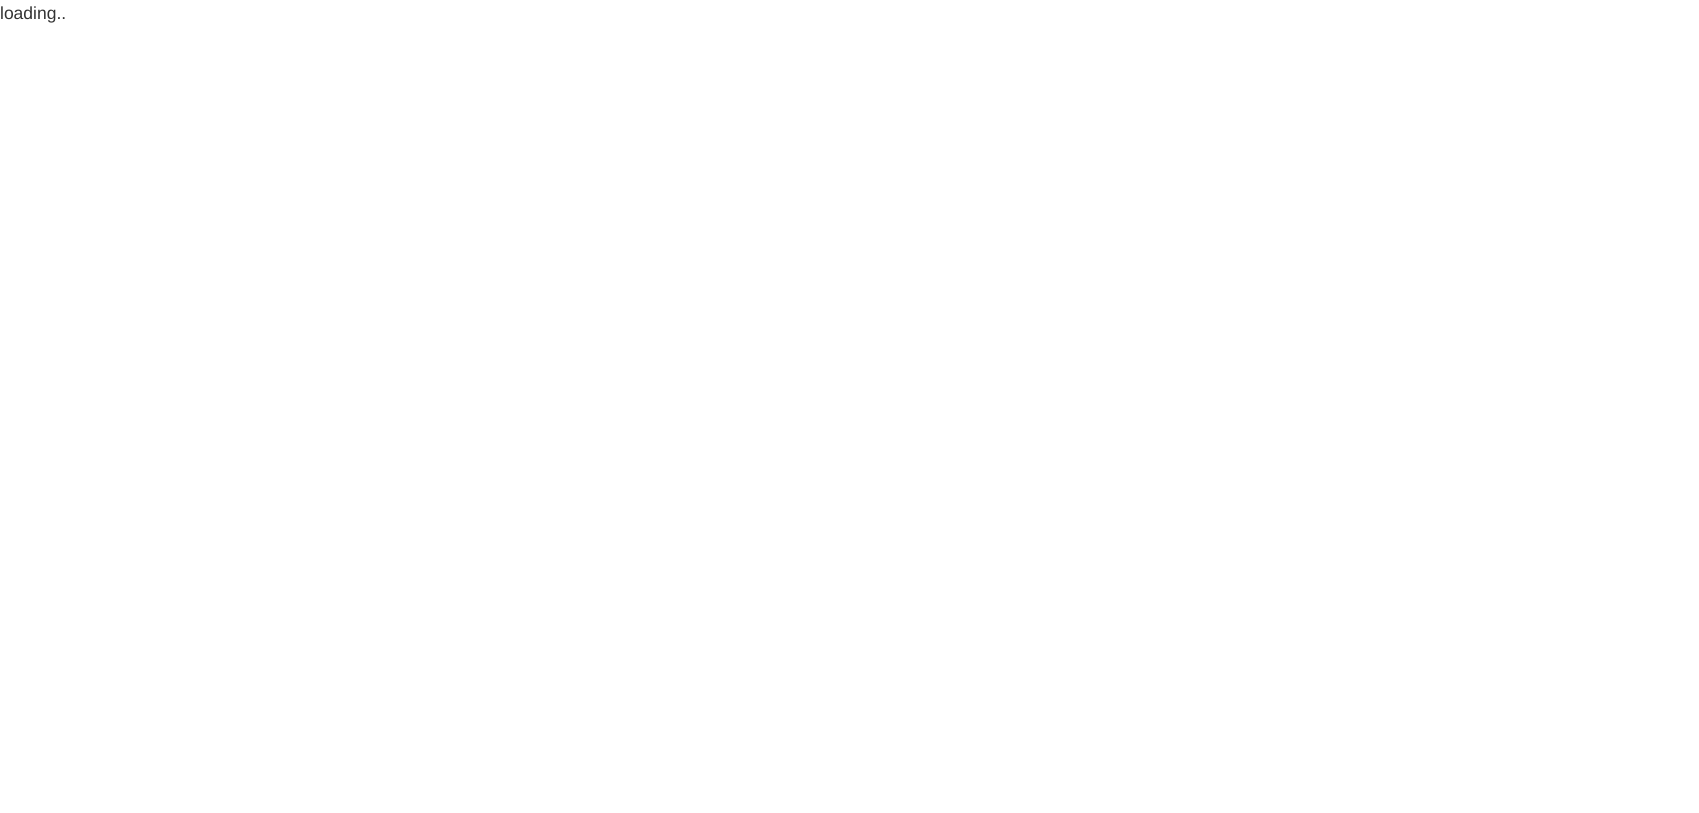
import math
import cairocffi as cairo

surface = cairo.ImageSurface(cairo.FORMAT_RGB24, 1699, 813)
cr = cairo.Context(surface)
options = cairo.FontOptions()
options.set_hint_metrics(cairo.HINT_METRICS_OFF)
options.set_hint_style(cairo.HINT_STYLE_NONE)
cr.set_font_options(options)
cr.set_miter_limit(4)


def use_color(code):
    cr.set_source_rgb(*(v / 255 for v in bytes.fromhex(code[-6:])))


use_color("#ffffff")
cr.paint()
cr.select_font_face("Liberation Sans")
cr.set_font_size(17.5)
use_color("#333333")
cr.move_to(0, 19)
cr.show_text("loading..")
surface.write_to_png("result.png")
